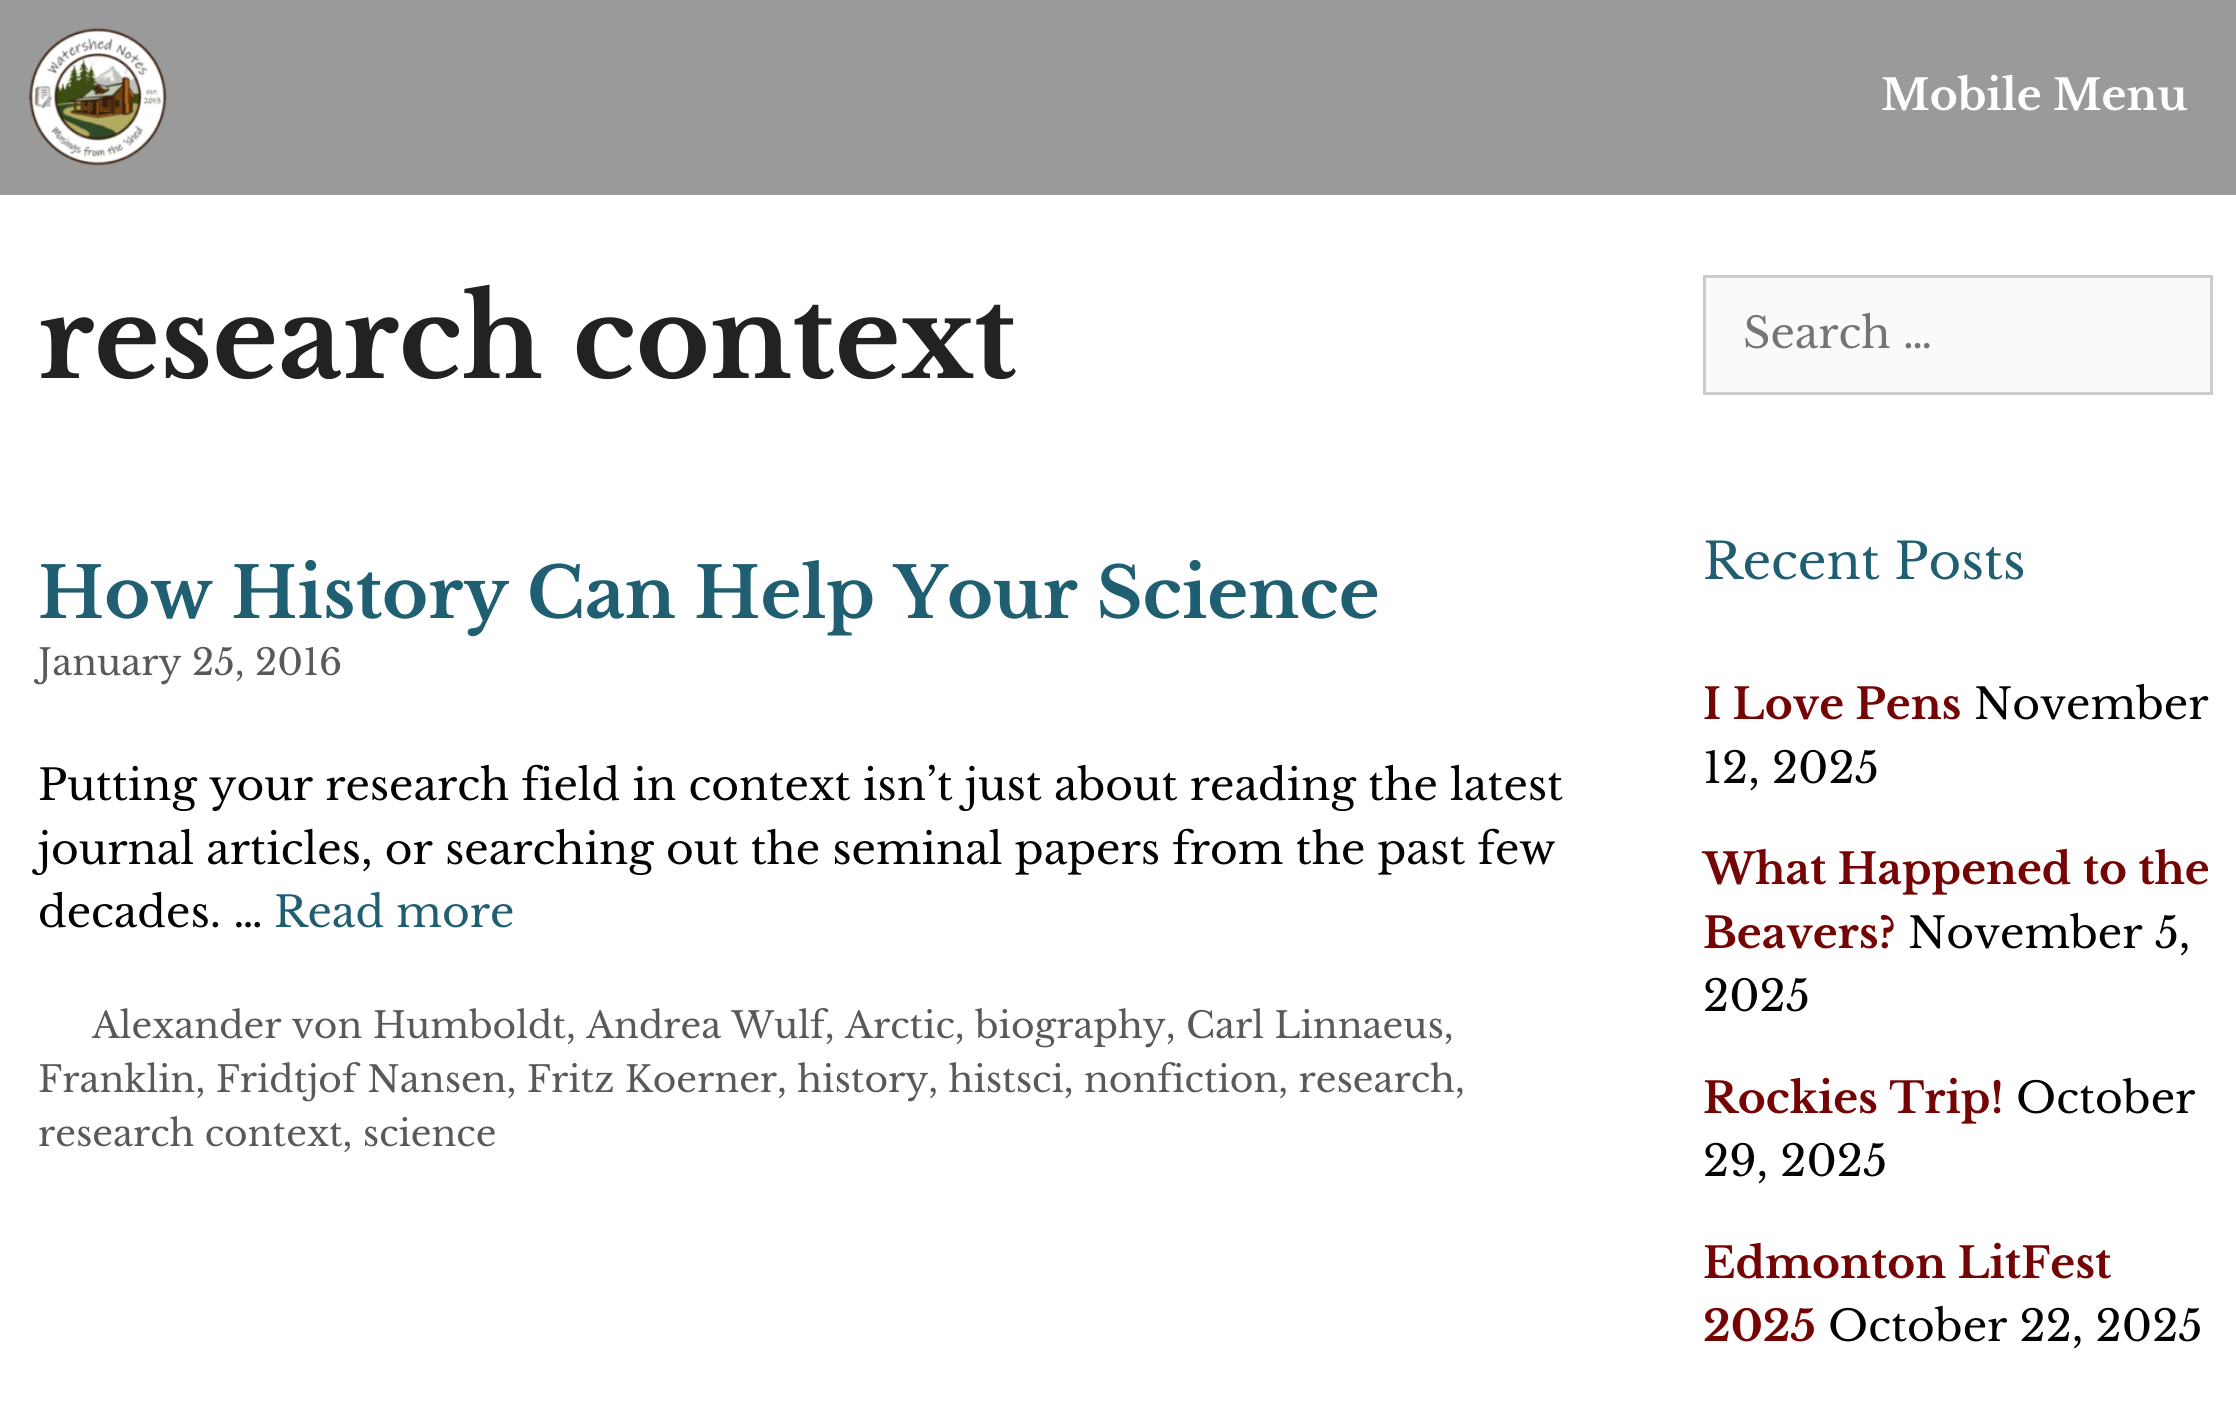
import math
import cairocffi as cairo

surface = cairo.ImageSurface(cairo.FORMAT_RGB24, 2236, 1426)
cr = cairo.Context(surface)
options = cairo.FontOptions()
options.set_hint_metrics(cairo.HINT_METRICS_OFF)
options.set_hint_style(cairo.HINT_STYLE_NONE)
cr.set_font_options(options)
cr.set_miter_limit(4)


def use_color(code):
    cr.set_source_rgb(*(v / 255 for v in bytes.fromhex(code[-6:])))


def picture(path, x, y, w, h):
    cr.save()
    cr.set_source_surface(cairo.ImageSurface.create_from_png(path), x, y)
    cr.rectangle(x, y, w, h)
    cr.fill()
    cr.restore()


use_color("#ffffff")
cr.paint()
use_color("#9a9a9a")
cr.rectangle(0, 0, 2236, 195)
cr.fill()
picture("img1.png", 28, 27, 139, 139)
cr.select_font_face("Libre Baskerville", cairo.FONT_SLANT_NORMAL, cairo.FONT_WEIGHT_BOLD)
cr.set_font_size(42.5)
use_color("#ffffff")
cr.move_to(1881, 110)
cr.show_text("Mobile Menu")
cr.set_font_size(112.5)
use_color("#222222")
cr.move_to(38, 378)
cr.show_text("research context")
cr.set_font_size(70)
use_color("#205f71")
cr.move_to(38, 618)
cr.show_text("How History Can Help Your Science")
cr.select_font_face("Libre Baskerville")
cr.set_font_size(36.1)
use_color("#595959")
cr.move_to(38, 675)
cr.show_text("January 25, 2016")
cr.set_font_size(42.5)
use_color("#020202")
cr.move_to(38, 800)
cr.show_text("Putting your research field in context isn’t just about reading the latest")
cr.move_to(38, 864)
cr.show_text("journal articles, or searching out the seminal papers from the past few")
cr.move_to(38, 927)
cr.show_text("decades. …")
use_color("#205f71")
cr.move_to(274, 927)
cr.show_text("Read more")
cr.set_font_size(36.1)
use_color("#595959")
cr.move_to(92, 1038)
cr.show_text("Alexander von Humboldt")
cr.move_to(566, 1038)
cr.show_text(", Andrea Wulf, Arctic, biography, Carl Linnaeus,")
cr.move_to(38, 1092)
cr.show_text("Franklin, Fridtjof Nansen, Fritz Koerner, history, histsci, nonfiction, research,")
cr.move_to(38, 1146)
cr.show_text("research context, science")
use_color("#fafafa")
cr.rectangle(1704.5, 276.5, 507, 117)
cr.fill_preserve()
use_color("#cccccc")
cr.set_line_width(3)
cr.stroke()
cr.set_font_size(42.5)
use_color("#757575")
cr.move_to(1743, 348)
cr.show_text("Search …")
cr.set_font_size(50)
use_color("#205f71")
cr.move_to(1703, 579)
cr.show_text("Recent Posts")
cr.select_font_face("Libre Baskerville", cairo.FONT_SLANT_NORMAL, cairo.FONT_WEIGHT_BOLD)
cr.set_font_size(42.5)
use_color("#750404")
cr.move_to(1703, 719)
cr.show_text("I Love Pens")
cr.select_font_face("Libre Baskerville")
use_color("#020202")
cr.move_to(1974, 719)
cr.show_text("November")
cr.move_to(1703, 783)
cr.show_text("12, 2025")
cr.select_font_face("Libre Baskerville", cairo.FONT_SLANT_NORMAL, cairo.FONT_WEIGHT_BOLD)
use_color("#750404")
cr.move_to(1703, 884)
cr.show_text("What Happened to the")
cr.move_to(1703, 948)
cr.show_text("Beavers?")
cr.select_font_face("Libre Baskerville")
use_color("#020202")
cr.move_to(1908, 948)
cr.show_text("November 5,")
cr.move_to(1703, 1011)
cr.show_text("2025")
cr.select_font_face("Libre Baskerville", cairo.FONT_SLANT_NORMAL, cairo.FONT_WEIGHT_BOLD)
use_color("#750404")
cr.move_to(1703, 1113)
cr.show_text("Rockies Trip!")
cr.select_font_face("Libre Baskerville")
use_color("#020202")
cr.move_to(2016, 1113)
cr.show_text("October")
cr.move_to(1703, 1176)
cr.show_text("29, 2025")
cr.select_font_face("Libre Baskerville", cairo.FONT_SLANT_NORMAL, cairo.FONT_WEIGHT_BOLD)
use_color("#750404")
cr.move_to(1703, 1278)
cr.show_text("Edmonton LitFest")
cr.move_to(1703, 1341)
cr.show_text("2025")
cr.select_font_face("Libre Baskerville")
use_color("#020202")
cr.move_to(1828, 1341)
cr.show_text("October 22, 2025")
surface.write_to_png("result.png")
